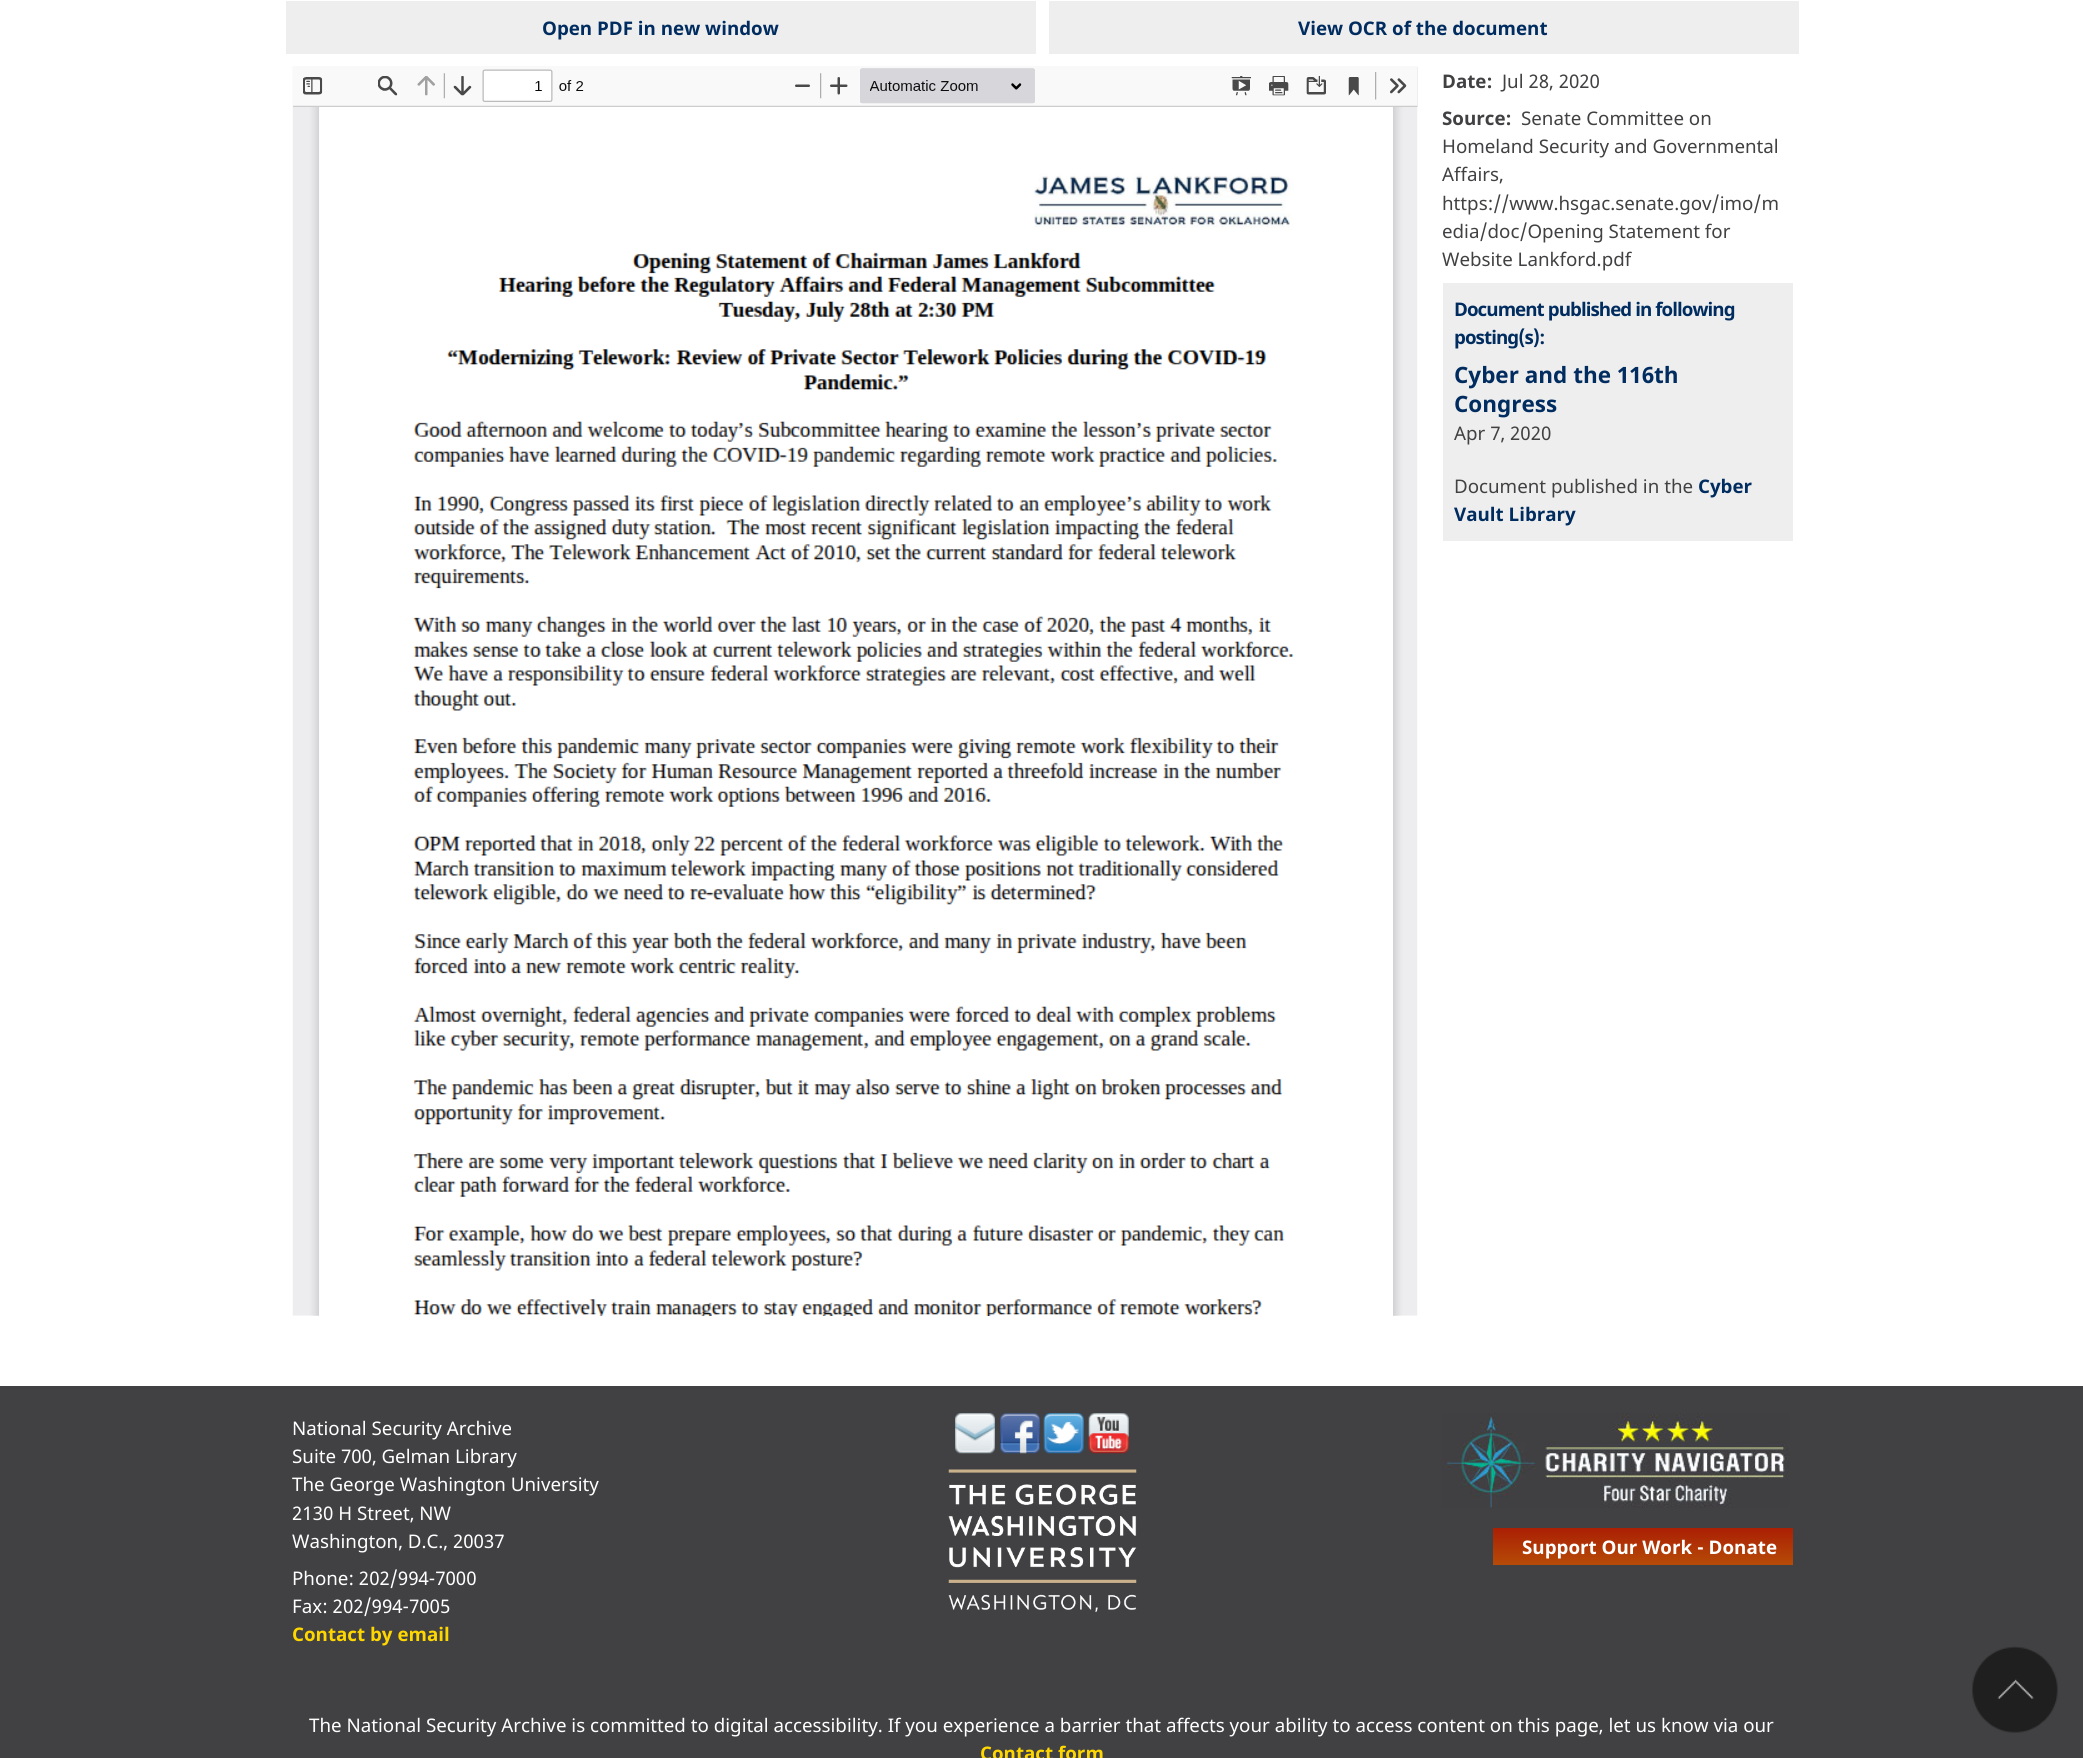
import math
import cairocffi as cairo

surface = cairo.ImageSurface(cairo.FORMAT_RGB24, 2083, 1758)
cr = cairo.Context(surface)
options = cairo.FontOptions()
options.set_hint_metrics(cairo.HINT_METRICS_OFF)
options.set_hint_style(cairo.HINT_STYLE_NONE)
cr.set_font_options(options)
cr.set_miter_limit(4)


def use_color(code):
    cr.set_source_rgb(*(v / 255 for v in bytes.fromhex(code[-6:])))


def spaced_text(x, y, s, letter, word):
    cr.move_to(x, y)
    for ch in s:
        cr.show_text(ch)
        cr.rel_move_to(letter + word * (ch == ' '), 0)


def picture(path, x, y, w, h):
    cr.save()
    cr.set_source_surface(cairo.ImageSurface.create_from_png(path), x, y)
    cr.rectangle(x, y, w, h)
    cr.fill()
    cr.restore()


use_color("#ffffff")
cr.paint()
use_color("#eeeeee")
cr.rectangle(286, 1, 750, 53)
cr.fill()
cr.select_font_face("Noto Sans", cairo.FONT_SLANT_NORMAL, cairo.FONT_WEIGHT_BOLD)
cr.set_font_size(18.75)
use_color("#002c5f")
cr.move_to(542, 35)
cr.show_text("Open PDF in new window")
use_color("#eeeeee")
cr.rectangle(1049, 1, 750, 53)
cr.fill()
use_color("#002c5f")
cr.move_to(1298, 35)
cr.show_text("View OCR of the document")
picture("img1.png", 292, 66, 1126, 1250)
use_color("#414042")
cr.move_to(1442, 88)
cr.show_text("Date:")
cr.select_font_face("Noto Sans")
cr.move_to(1502, 88)
cr.show_text("Jul 28, 2020")
cr.move_to(1521, 125)
cr.show_text("Senate Committee on")
cr.move_to(1442, 153)
cr.show_text("Homeland Security and Governmental")
cr.move_to(1442, 181)
cr.show_text("Affairs,")
cr.move_to(1442, 210)
cr.show_text("https://www.hsgac.senate.gov/imo/m")
cr.move_to(1442, 238)
cr.show_text("edia/doc/Opening Statement for")
cr.move_to(1442, 266)
cr.show_text("Website Lankford.pdf")
cr.select_font_face("Noto Sans", cairo.FONT_SLANT_NORMAL, cairo.FONT_WEIGHT_BOLD)
cr.move_to(1442, 125)
cr.show_text("Source:")
use_color("#eeeeee")
cr.rectangle(1443, 283, 350, 258)
cr.fill()
use_color("#002c5f")
spaced_text(1454, 316, "Document published in following", -0.95, 0)
spaced_text(1454, 344, "posting(s):", -0.95, 0)
cr.set_font_size(22.5)
cr.move_to(1454, 383)
cr.show_text("Cyber and the 116th")
cr.move_to(1454, 412)
cr.show_text("Congress")
cr.select_font_face("Noto Sans")
cr.set_font_size(18.75)
use_color("#414042")
cr.move_to(1454, 440)
cr.show_text("Apr 7, 2020")
cr.move_to(1454, 493)
cr.show_text("Document published in the")
cr.select_font_face("Noto Sans", cairo.FONT_SLANT_NORMAL, cairo.FONT_WEIGHT_BOLD)
use_color("#002c5f")
cr.move_to(1698, 493)
cr.show_text("Cyber")
cr.move_to(1454, 521)
cr.show_text("Vault Library")
use_color("#414042")
cr.rectangle(0, 1386, 2083, 372)
cr.fill()
cr.select_font_face("Noto Sans")
use_color("#ffffff")
cr.move_to(292, 1435)
cr.show_text("National Security Archive")
cr.move_to(292, 1463)
cr.show_text("Suite 700, Gelman Library")
cr.move_to(292, 1491)
cr.show_text("The George Washington University")
cr.move_to(292, 1520)
cr.show_text("2130 H Street, NW")
cr.move_to(292, 1548)
cr.show_text("Washington, D.C., 20037")
cr.move_to(292, 1585)
cr.show_text("Phone: 202/994-7000")
cr.move_to(292, 1613)
cr.show_text("Fax: 202/994-7005")
cr.select_font_face("Noto Sans", cairo.FONT_SLANT_NORMAL, cairo.FONT_WEIGHT_BOLD)
use_color("#ffd700")
cr.move_to(292, 1641)
cr.show_text("Contact by email")
picture("img2.png", 955, 1413, 40, 41)
picture("img3.png", 1000, 1413, 40, 41)
picture("img4.png", 1043, 1413, 41, 41)
picture("img5.png", 1088, 1413, 41, 41)
picture("img6.png", 948, 1469, 189, 143)
picture("img7.png", 1442, 1413, 347, 95)
gradient = cairo.LinearGradient(1643, 1528, 1643, 1565)
gradient.add_color_stop_rgba(0, 0.667, 0.122, 0.016, 1)
gradient.add_color_stop_rgba(1, 0.714, 0.294, 0.027, 1)
cr.set_source(gradient)
cr.rectangle(1493, 1528, 300, 37)
cr.fill()
use_color("#ffffff")
cr.move_to(1522, 1554)
cr.show_text("Support Our Work - Donate")
cr.select_font_face("Noto Sans")
cr.move_to(309, 1732)
cr.show_text("The National Security Archive is committed to digital accessibility. If you experience a barrier that affects your ability to access content on this page, let us know via our")
cr.select_font_face("Noto Sans", cairo.FONT_SLANT_NORMAL, cairo.FONT_WEIGHT_BOLD)
use_color("#ffd700")
cr.move_to(980, 1760)
cr.show_text("Contact form")
picture("img8.png", 1972, 1646, 86, 87)
surface.write_to_png("result.png")
